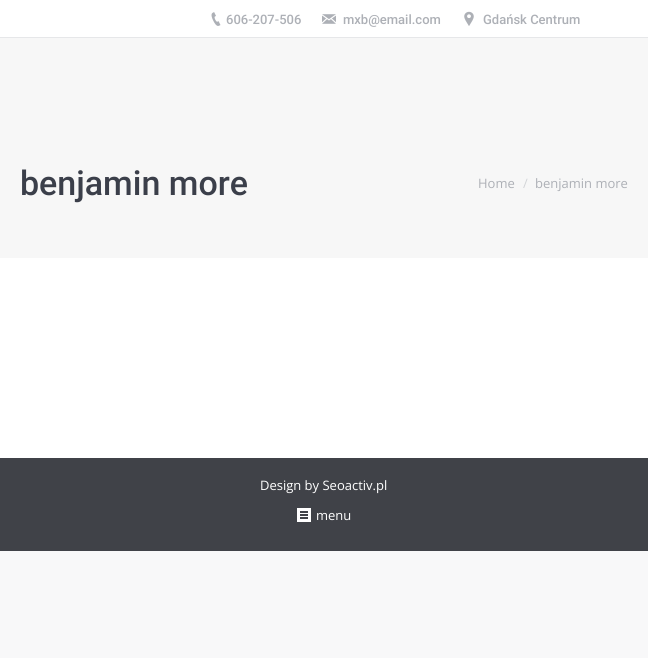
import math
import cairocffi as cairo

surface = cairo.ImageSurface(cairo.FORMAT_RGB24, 648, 658)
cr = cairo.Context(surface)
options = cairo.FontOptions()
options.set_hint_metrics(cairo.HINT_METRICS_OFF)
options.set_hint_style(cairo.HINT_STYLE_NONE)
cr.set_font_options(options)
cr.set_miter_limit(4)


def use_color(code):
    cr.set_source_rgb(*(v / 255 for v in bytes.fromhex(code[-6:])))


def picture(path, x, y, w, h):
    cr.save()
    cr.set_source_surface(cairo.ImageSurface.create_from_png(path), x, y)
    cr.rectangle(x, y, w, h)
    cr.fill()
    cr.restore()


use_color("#f8f8f9")
cr.paint()
use_color("#ffffff")
cr.rectangle(0, 0, 648, 458)
cr.fill()
picture("img1.png", 211, 12, 10, 14)
cr.select_font_face("Roboto Medium")
cr.set_font_size(13)
use_color("#adb0b6")
cr.move_to(226, 24)
cr.show_text("606-207-506")
picture("img2.png", 322, 14, 14, 10)
cr.move_to(343, 24)
cr.show_text("mxb@email.com")
picture("img3.png", 464, 11, 10, 15)
cr.move_to(483, 24)
cr.show_text("Gdańsk Centrum")
use_color("#e6e7e9")
cr.rectangle(0, 37, 648, 1)
cr.fill()
use_color("#f7f7f7")
cr.rectangle(0, 38, 648, 220)
cr.fill()
cr.set_font_size(34)
use_color("#3b3f4a")
cr.move_to(20, 195)
cr.show_text("benjamin more")
cr.select_font_face("Open Sans")
cr.set_font_size(13)
use_color("#adb0b6")
cr.move_to(478, 188)
cr.show_text("Home")
use_color("#d2d4d7")
cr.move_to(523, 188)
cr.show_text("/")
use_color("#adb0b6")
cr.move_to(535, 188)
cr.show_text("benjamin more")
use_color("#404248")
cr.rectangle(0, 458, 648, 93)
cr.fill()
use_color("#ffffff")
cr.move_to(260, 490)
cr.show_text("Design by Seoactiv.pl")
picture("img4.png", 297, 508, 14, 14)
cr.move_to(316, 520)
cr.show_text("menu")
surface.write_to_png("result.png")
